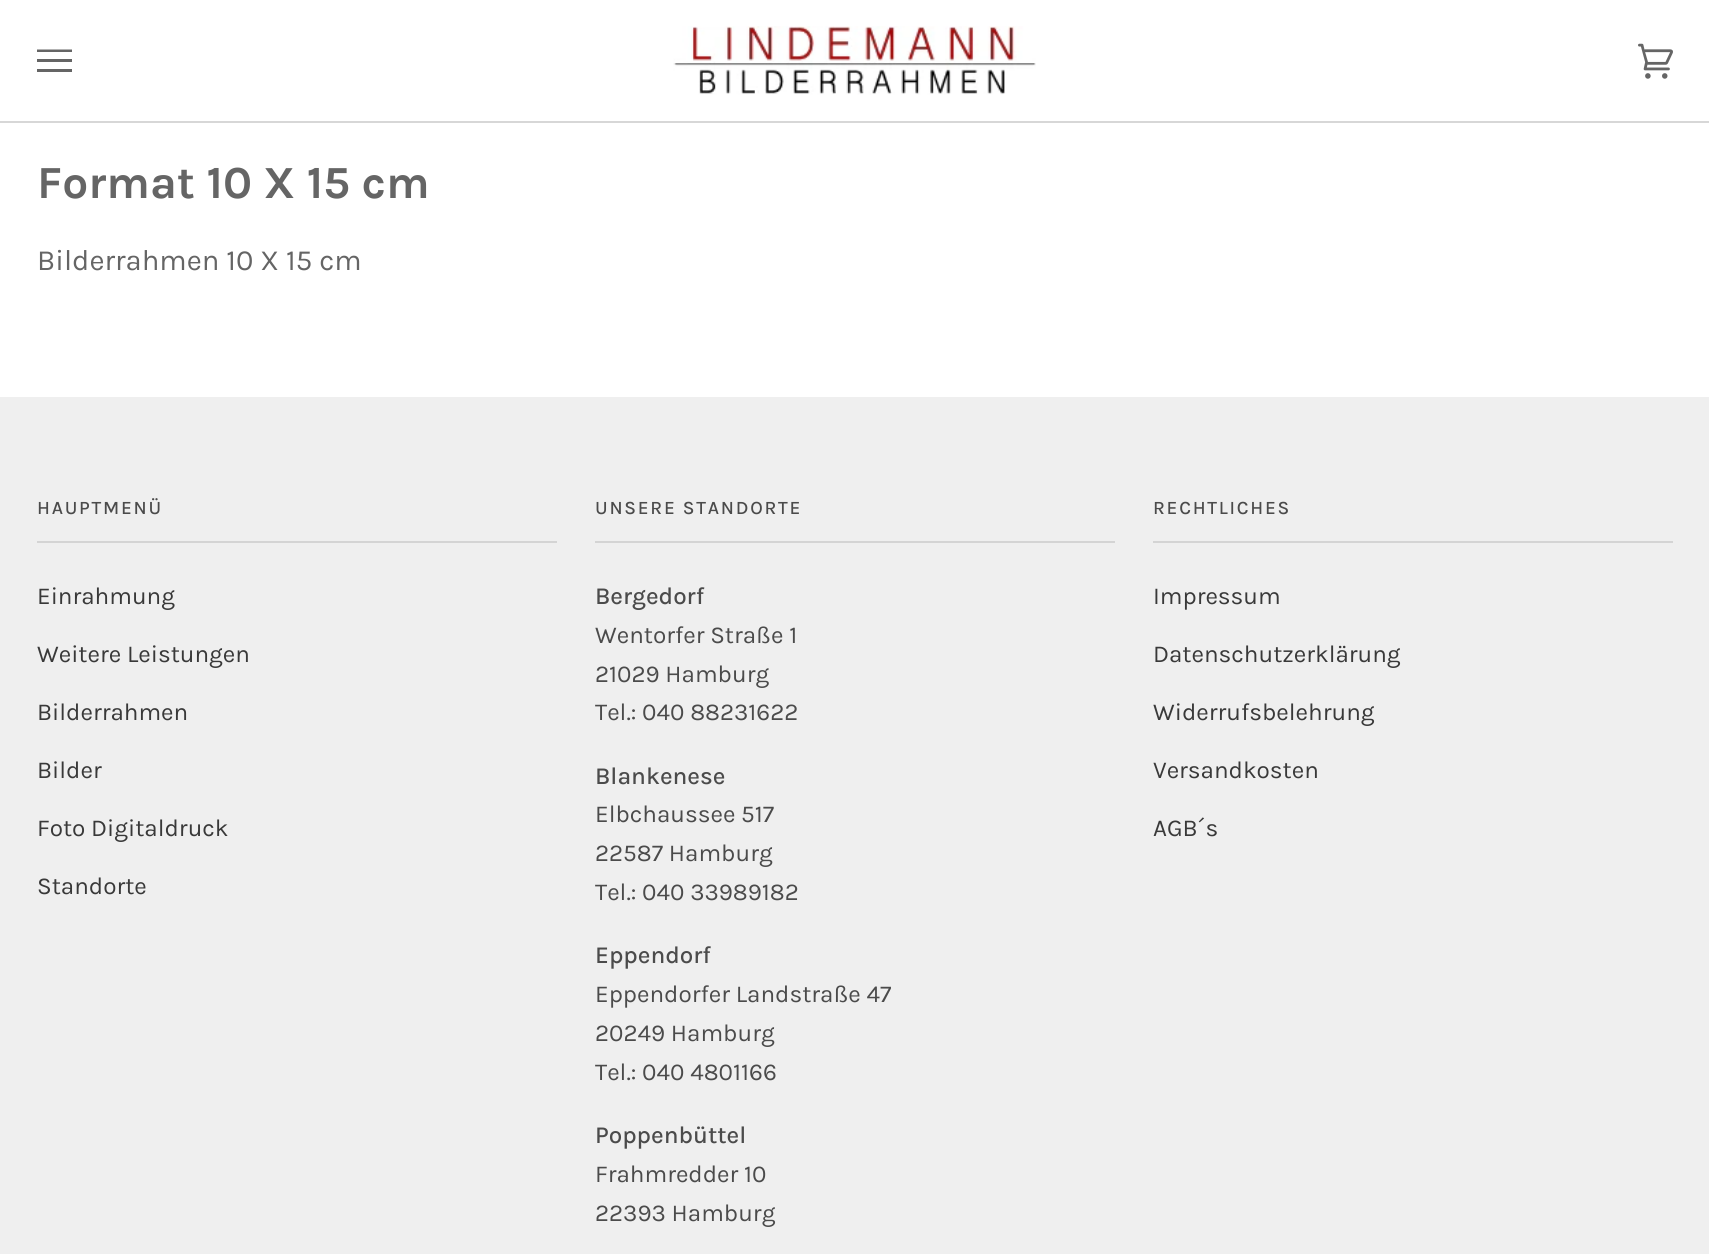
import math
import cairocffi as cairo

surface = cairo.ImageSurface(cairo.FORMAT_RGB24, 1709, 1254)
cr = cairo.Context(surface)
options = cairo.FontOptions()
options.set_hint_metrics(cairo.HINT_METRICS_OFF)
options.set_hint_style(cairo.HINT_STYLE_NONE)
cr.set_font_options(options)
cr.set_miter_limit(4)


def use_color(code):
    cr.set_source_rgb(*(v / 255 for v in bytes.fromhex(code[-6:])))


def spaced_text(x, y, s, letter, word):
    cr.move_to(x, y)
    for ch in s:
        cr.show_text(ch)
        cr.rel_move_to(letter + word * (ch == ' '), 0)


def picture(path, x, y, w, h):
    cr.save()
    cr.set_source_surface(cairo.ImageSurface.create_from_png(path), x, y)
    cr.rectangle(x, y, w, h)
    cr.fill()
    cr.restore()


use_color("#ffffff")
cr.paint()
use_color("#d7d7d7")
cr.rectangle(0, 121, 1709, 2)
cr.fill()
use_color("#656565")
cr.new_path()
cr.move_to(37, 49.5)
cr.line_to(72, 49.5)
cr.line_to(72, 52)
cr.line_to(37, 52)
cr.close_path()
cr.move_to(37, 59)
cr.line_to(72, 59)
cr.line_to(72, 62)
cr.line_to(37, 62)
cr.close_path()
cr.move_to(37, 69)
cr.line_to(72, 69)
cr.line_to(72, 72)
cr.line_to(37, 72)
cr.close_path()
cr.fill()
picture("img1.png", 673, 26, 363, 69)
picture("img2.png", 1638, 43, 35, 36)
cr.select_font_face("Karla", cairo.FONT_SLANT_NORMAL, cairo.FONT_WEIGHT_BOLD)
cr.set_font_size(46)
cr.move_to(37, 198)
cr.show_text("Format 10 X 15 cm")
cr.select_font_face("Karla")
cr.set_font_size(29.25)
cr.move_to(37, 270)
cr.show_text("Bilderrahmen 10 X 15 cm")
use_color("#efefef")
cr.rectangle(0, 397, 1709, 857)
cr.fill()
use_color("#d4d4d4")
cr.rectangle(37, 541, 520, 2)
cr.fill()
cr.select_font_face("Karla Medium")
cr.set_font_size(18.9)
use_color("#4b4b4b")
spaced_text(37, 514, "HAUPTMENÜ", 1.75, 0)
cr.select_font_face("Karla")
cr.set_font_size(24.25)
use_color("#393939")
cr.move_to(37, 604)
cr.show_text("Einrahmung")
cr.move_to(37, 662)
cr.show_text("Weitere Leistungen")
cr.move_to(37, 720)
cr.show_text("Bilderrahmen")
cr.move_to(37, 778)
cr.show_text("Bilder")
cr.move_to(37, 836)
cr.show_text("Foto Digitaldruck")
cr.move_to(37, 894)
cr.show_text("Standorte")
use_color("#d4d4d4")
cr.rectangle(595, 541, 520, 2)
cr.fill()
cr.select_font_face("Karla Medium")
cr.set_font_size(18.9)
use_color("#4b4b4b")
spaced_text(595, 514, "UNSERE STANDORTE", 1.75, 0)
cr.set_font_size(24.25)
cr.move_to(595, 604)
cr.show_text("Bergedorf")
cr.select_font_face("Karla")
cr.move_to(595, 643)
cr.show_text("Wentorfer Straße 1")
cr.move_to(595, 682)
cr.show_text("21029 Hamburg")
cr.move_to(595, 720)
cr.show_text("Tel.: 040 88231622")
cr.select_font_face("Karla Medium")
cr.move_to(595, 784)
cr.show_text("Blankenese")
cr.select_font_face("Karla")
cr.move_to(595, 822)
cr.show_text("Elbchaussee 517")
cr.move_to(595, 861)
cr.show_text("22587 Hamburg")
cr.move_to(595, 900)
cr.show_text("Tel.: 040 33989182")
cr.select_font_face("Karla Medium")
cr.move_to(595, 963)
cr.show_text("Eppendorf")
cr.select_font_face("Karla")
cr.move_to(595, 1002)
cr.show_text("Eppendorfer Landstraße 47")
cr.move_to(595, 1041)
cr.show_text("20249 Hamburg")
cr.move_to(595, 1080)
cr.show_text("Tel.: 040 4801166")
cr.select_font_face("Karla Medium")
cr.move_to(595, 1143)
cr.show_text("Poppenbüttel")
cr.select_font_face("Karla")
cr.move_to(595, 1182)
cr.show_text("Frahmredder 10")
cr.move_to(595, 1221)
cr.show_text("22393 Hamburg")
use_color("#d4d4d4")
cr.rectangle(1153, 541, 520, 2)
cr.fill()
cr.select_font_face("Karla Medium")
cr.set_font_size(18.9)
use_color("#4b4b4b")
spaced_text(1153, 514, "RECHTLICHES", 1.75, 0)
cr.select_font_face("Karla")
cr.set_font_size(24.25)
use_color("#393939")
cr.move_to(1153, 604)
cr.show_text("Impressum")
cr.move_to(1153, 662)
cr.show_text("Datenschutzerklärung")
cr.move_to(1153, 720)
cr.show_text("Widerrufsbelehrung")
cr.move_to(1153, 778)
cr.show_text("Versandkosten")
cr.move_to(1153, 836)
cr.show_text("AGB´s")
surface.write_to_png("result.png")
